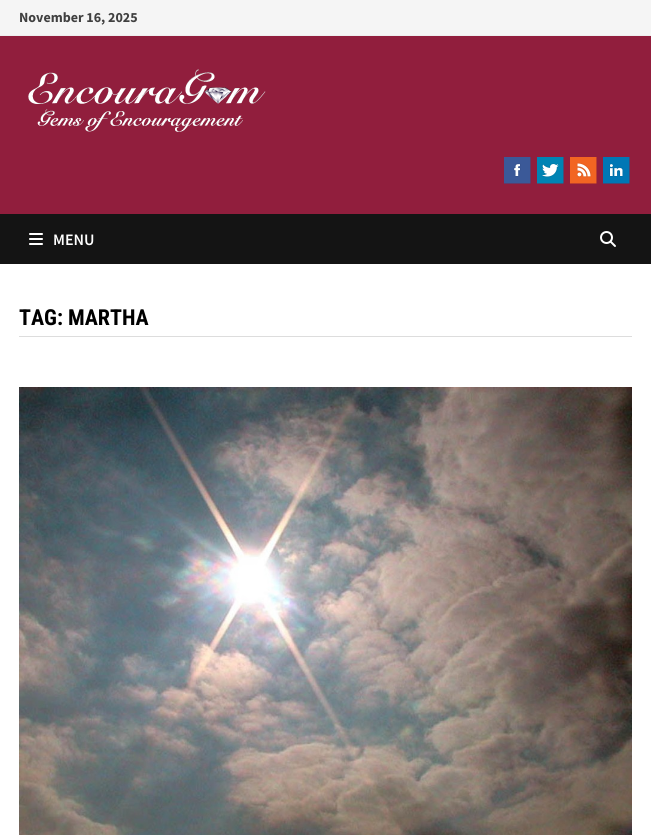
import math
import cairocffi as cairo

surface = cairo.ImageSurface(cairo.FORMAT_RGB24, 651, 835)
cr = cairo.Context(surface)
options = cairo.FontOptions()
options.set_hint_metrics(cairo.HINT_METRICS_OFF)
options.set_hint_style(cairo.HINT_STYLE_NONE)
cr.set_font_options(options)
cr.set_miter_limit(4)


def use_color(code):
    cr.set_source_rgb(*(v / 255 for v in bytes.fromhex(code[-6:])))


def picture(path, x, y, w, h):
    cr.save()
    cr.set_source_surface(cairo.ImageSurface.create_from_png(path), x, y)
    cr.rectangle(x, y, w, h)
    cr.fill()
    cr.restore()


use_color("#ffffff")
cr.paint()
use_color("#f5f5f5")
cr.rectangle(0, 0, 651, 35)
cr.fill()
use_color("#eeeeee")
cr.rectangle(0, 35, 651, 1)
cr.fill()
cr.select_font_face("Source Sans Pro", cairo.FONT_SLANT_NORMAL, cairo.FONT_WEIGHT_BOLD)
cr.set_font_size(14)
use_color("#404040")
cr.move_to(19, 22)
cr.show_text("November 16, 2025")
use_color("#911e3d")
cr.rectangle(0, 36, 651, 178)
cr.fill()
picture("img1.png", 28, 69, 238, 63)
picture("img2.png", 504, 157, 27, 27)
picture("img3.png", 537, 157, 27, 27)
picture("img4.png", 570, 157, 27, 27)
picture("img5.png", 603, 157, 27, 27)
use_color("#141414")
cr.rectangle(0, 214, 651, 50)
cr.fill()
picture("img6.png", 29, 233, 14, 12)
cr.select_font_face("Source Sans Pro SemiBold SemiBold")
cr.set_font_size(16)
use_color("#ffffff")
cr.move_to(53, 245)
cr.show_text("MENU")
picture("img7.png", 600, 231, 16, 16)
use_color("#dddddd")
cr.rectangle(19, 336, 613, 1)
cr.fill()
cr.select_font_face("Roboto Condensed", cairo.FONT_SLANT_NORMAL, cairo.FONT_WEIGHT_BOLD)
cr.set_font_size(22)
use_color("#000000")
cr.move_to(19, 325)
cr.show_text("TAG: MARTHA")
picture("img8.png", 19, 387, 613, 448)
surface.write_to_png("result.png")
